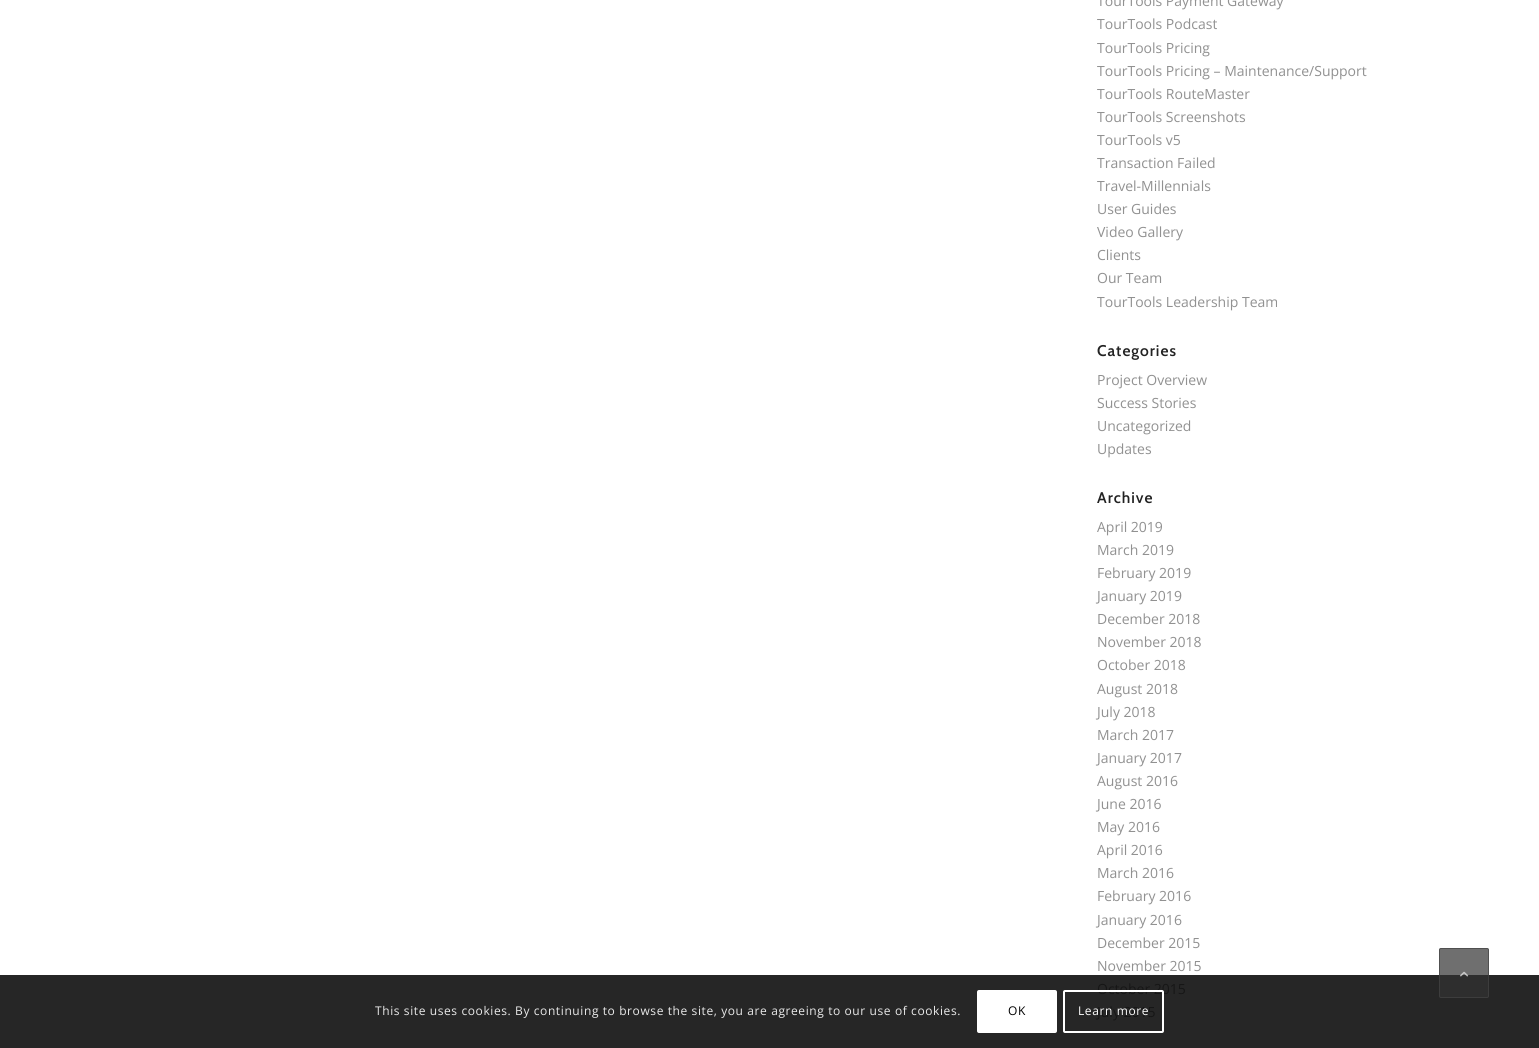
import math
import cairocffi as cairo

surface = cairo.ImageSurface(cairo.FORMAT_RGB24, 1539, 1048)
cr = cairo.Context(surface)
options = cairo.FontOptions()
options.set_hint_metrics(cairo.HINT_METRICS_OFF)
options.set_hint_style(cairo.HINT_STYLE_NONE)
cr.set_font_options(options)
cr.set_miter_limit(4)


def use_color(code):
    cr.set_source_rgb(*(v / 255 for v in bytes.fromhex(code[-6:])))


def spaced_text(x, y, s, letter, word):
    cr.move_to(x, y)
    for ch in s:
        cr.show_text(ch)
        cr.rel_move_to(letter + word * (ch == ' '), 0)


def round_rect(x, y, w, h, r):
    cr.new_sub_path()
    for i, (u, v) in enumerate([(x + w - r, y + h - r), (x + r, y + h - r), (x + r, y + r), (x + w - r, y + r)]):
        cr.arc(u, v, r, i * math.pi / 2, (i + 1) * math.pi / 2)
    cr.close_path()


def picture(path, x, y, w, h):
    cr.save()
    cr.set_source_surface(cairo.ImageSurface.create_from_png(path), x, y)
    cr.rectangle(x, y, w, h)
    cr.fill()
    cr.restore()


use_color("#ffffff")
cr.paint()
use_color("#262626")
cr.rectangle(0, 975, 1539, 73)
cr.fill()
cr.select_font_face("Open Sans")
cr.set_font_size(14)
use_color("#919191")
cr.move_to(1097, 6)
cr.show_text("TourTools Payment Gateway")
cr.move_to(1097, 29)
cr.show_text("TourTools Podcast")
cr.move_to(1097, 53)
cr.show_text("TourTools Pricing")
cr.move_to(1097, 76)
cr.show_text("TourTools Pricing – Maintenance/Support")
cr.move_to(1097, 99)
cr.show_text("TourTools RouteMaster")
cr.move_to(1097, 122)
cr.show_text("TourTools Screenshots")
cr.move_to(1097, 145)
cr.show_text("TourTools v5")
cr.move_to(1097, 168)
cr.show_text("Transaction Failed")
cr.move_to(1097, 191)
cr.show_text("Travel-Millennials")
cr.move_to(1097, 214)
cr.show_text("User Guides")
cr.move_to(1097, 237)
cr.show_text("Video Gallery")
cr.move_to(1097, 260)
cr.show_text("Clients")
cr.move_to(1097, 283)
cr.show_text("Our Team")
cr.move_to(1097, 307)
cr.show_text("TourTools Leadership Team")
cr.select_font_face("Cabin SemiBold")
cr.set_font_size(15.5)
use_color("#222222")
spaced_text(1097, 356, "Categories", 1, 0)
cr.select_font_face("Open Sans")
cr.set_font_size(14)
use_color("#919191")
cr.move_to(1097, 385)
cr.show_text("Project Overview")
cr.move_to(1097, 408)
cr.show_text("Success Stories")
cr.move_to(1097, 431)
cr.show_text("Uncategorized")
cr.move_to(1097, 454)
cr.show_text("Updates")
cr.select_font_face("Cabin SemiBold")
cr.set_font_size(15.5)
use_color("#222222")
spaced_text(1097, 503, "Archive", 1, 0)
cr.select_font_face("Open Sans")
cr.set_font_size(14)
use_color("#919191")
cr.move_to(1097, 532)
cr.show_text("April 2019")
cr.move_to(1097, 555)
cr.show_text("March 2019")
cr.move_to(1097, 578)
cr.show_text("February 2019")
cr.move_to(1097, 601)
cr.show_text("January 2019")
cr.move_to(1097, 624)
cr.show_text("December 2018")
cr.move_to(1097, 647)
cr.show_text("November 2018")
cr.move_to(1097, 670)
cr.show_text("October 2018")
cr.move_to(1097, 694)
cr.show_text("August 2018")
cr.move_to(1097, 717)
cr.show_text("July 2018")
cr.move_to(1097, 740)
cr.show_text("March 2017")
cr.move_to(1097, 763)
cr.show_text("January 2017")
cr.move_to(1097, 786)
cr.show_text("August 2016")
cr.move_to(1097, 809)
cr.show_text("June 2016")
cr.move_to(1097, 832)
cr.show_text("May 2016")
cr.move_to(1097, 855)
cr.show_text("April 2016")
cr.move_to(1097, 878)
cr.show_text("March 2016")
cr.move_to(1097, 901)
cr.show_text("February 2016")
cr.move_to(1097, 925)
cr.show_text("January 2016")
cr.move_to(1097, 948)
cr.show_text("December 2015")
cr.move_to(1097, 971)
cr.show_text("November 2015")
use_color("#161616")
cr.move_to(1097, 994)
cr.show_text("October 2015")
cr.move_to(1097, 1017)
cr.show_text("July 2015")
cr.set_source_rgba(0.2, 0.2, 0.2, 0.7)
round_rect(1439, 948, 50, 50, 2)
cr.fill()
round_rect(1439.5, 948.5, 49, 49, 1.5)
cr.set_source_rgba(0.267, 0.267, 0.267, 0.7)
cr.set_line_width(1)
cr.stroke()
picture("img1.png", 1460, 971, 9, 6)
cr.set_font_size(12)
use_color("#e9e9e9")
spaced_text(375, 1015, "This site uses cookies. By continuing to browse the site, you are agreeing to our use of cookies.", 0.6, 0)
use_color("#ffffff")
round_rect(977, 990, 80, 43, 2)
cr.fill()
use_color("#000000")
spaced_text(1008, 1015, "OK", 0.6, 0)
round_rect(1064, 991, 99, 41, 1)
use_color("#ffffff")
cr.set_line_width(2)
cr.stroke()
spaced_text(1078, 1015, "Learn more", 0.6, 0)
surface.write_to_png("result.png")
